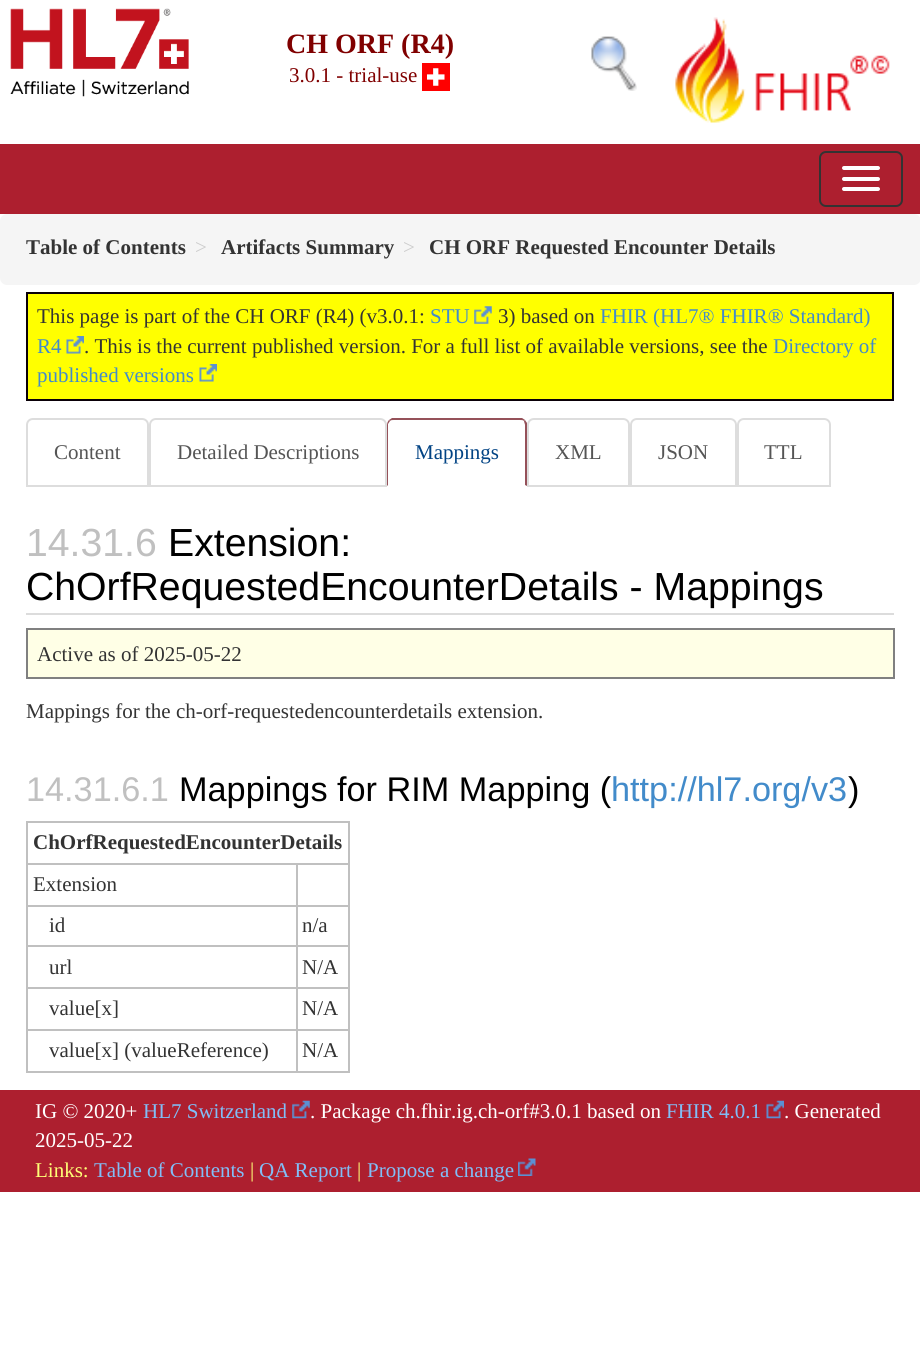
import math
import cairocffi as cairo

surface = cairo.ImageSurface(cairo.FORMAT_RGB24, 920, 1350)
cr = cairo.Context(surface)
options = cairo.FontOptions()
options.set_hint_metrics(cairo.HINT_METRICS_OFF)
options.set_hint_style(cairo.HINT_STYLE_NONE)
cr.set_font_options(options)
cr.set_miter_limit(4)


def use_color(code):
    cr.set_source_rgb(*(v / 255 for v in bytes.fromhex(code[-6:])))


def round_rect(x, y, w, h, r):
    cr.new_sub_path()
    for i, (u, v) in enumerate([(x + w - r, y + h - r), (x + r, y + h - r), (x + r, y + r), (x + w - r, y + r)]):
        cr.arc(u, v, r, i * math.pi / 2, (i + 1) * math.pi / 2)
    cr.close_path()


def picture(path, x, y, w, h):
    cr.save()
    cr.set_source_surface(cairo.ImageSurface.create_from_png(path), x, y)
    cr.rectangle(x, y, w, h)
    cr.fill()
    cr.restore()


use_color("#ffffff")
cr.paint()
picture("img1.png", 10, 8, 179, 89)
cr.select_font_face("Liberation Serif", cairo.FONT_SLANT_NORMAL, cairo.FONT_WEIGHT_BOLD)
cr.set_font_size(28)
use_color("#800000")
cr.move_to(286, 53)
cr.show_text("CH ORF (R4)")
cr.select_font_face("Liberation Serif")
cr.set_font_size(21)
cr.move_to(289, 82)
cr.show_text("3.0.1 - trial-use")
picture("img2.png", 422, 63, 28, 28)
picture("img3.png", 591, 36, 46, 55)
picture("img4.png", 675, 17, 215, 106)
use_color("#ad1f2f")
cr.rectangle(0, 144, 920, 70)
cr.fill()
round_rect(820, 152, 82, 54, 6)
use_color("#333333")
cr.stroke()
use_color("#ffffff")
round_rect(842, 166, 38, 4, 2)
cr.fill()
round_rect(842, 177, 38, 4, 2)
cr.fill()
round_rect(842, 187, 38, 4, 2)
cr.fill()
use_color("#f5f5f5")
round_rect(0, 214, 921, 71, 7)
cr.fill()
cr.select_font_face("Liberation Serif", cairo.FONT_SLANT_NORMAL, cairo.FONT_WEIGHT_BOLD)
use_color("#333333")
cr.move_to(26, 254)
cr.show_text("Table of Contents")
cr.select_font_face("Liberation Serif")
use_color("#cccccc")
cr.move_to(195, 254)
cr.show_text(">")
cr.select_font_face("Liberation Serif", cairo.FONT_SLANT_NORMAL, cairo.FONT_WEIGHT_BOLD)
use_color("#333333")
cr.move_to(221, 254)
cr.show_text("Artifacts Summary")
cr.select_font_face("Liberation Serif")
use_color("#cccccc")
cr.move_to(403, 254)
cr.show_text(">")
cr.select_font_face("Liberation Serif", cairo.FONT_SLANT_NORMAL, cairo.FONT_WEIGHT_BOLD)
use_color("#333333")
cr.move_to(429, 254)
cr.show_text("CH ORF Requested Encounter Details")
use_color("#ffff00")
cr.rectangle(27, 293, 866, 107)
cr.fill_preserve()
use_color("#0a0008")
cr.stroke()
cr.select_font_face("Liberation Serif")
use_color("#333333")
cr.move_to(37, 323)
cr.show_text("This page is part of the CH ORF (R4) (v3.0.1:")
use_color("#428bca")
cr.move_to(600, 323)
cr.show_text("FHIR (HL7® FHIR® Standard)")
cr.move_to(37, 353)
cr.show_text("R4")
picture("img5.png", 66, 336, 18, 18)
cr.move_to(430, 323)
cr.show_text("STU")
picture("img6.png", 474, 306, 18, 18)
use_color("#333333")
cr.move_to(498, 323)
cr.show_text("3) based on")
use_color("#428bca")
cr.move_to(773, 353)
cr.show_text("Directory of")
cr.move_to(37, 382)
cr.show_text("published versions")
picture("img7.png", 199, 364, 18, 18)
use_color("#333333")
cr.move_to(84, 353)
cr.show_text(". This is the current published version. For a full list of available versions, see the")
cr.new_path()
cr.move_to(33, 419)
cr.line_to(142, 419)
cr.curve_to(145.5, 419, 148, 421.5, 148, 425)
cr.line_to(148, 486)
cr.line_to(27, 486)
cr.line_to(27, 425)
cr.curve_to(27, 421.5, 29.5, 419, 33, 419)
cr.close_path()
use_color("#dddddd")
cr.stroke()
use_color("#555555")
cr.move_to(54, 459)
cr.show_text("Content")
cr.new_path()
cr.move_to(156, 419)
cr.line_to(380, 419)
cr.curve_to(383.5, 419, 386, 421.5, 386, 425)
cr.line_to(386, 486)
cr.line_to(150, 486)
cr.line_to(150, 425)
cr.curve_to(150, 421.5, 152.5, 419, 156, 419)
cr.close_path()
use_color("#dddddd")
cr.stroke()
use_color("#555555")
cr.move_to(177, 459)
cr.show_text("Detailed Descriptions")
use_color("#955159")
cr.new_path()
cr.move_to(394, 420)
cr.curve_to(392, 420, 391, 420, 390, 421)
cr.line_to(389, 420)
cr.line_to(392, 418)
cr.line_to(522, 418)
cr.line_to(525, 420)
cr.line_to(524, 421)
cr.curve_to(523, 420, 522, 420, 520, 420)
cr.close_path()
cr.fill()
cr.new_path()
cr.move_to(527, 486)
cr.line_to(525, 485)
cr.line_to(525, 425)
cr.curve_to(525, 424, 524, 422, 524, 421)
cr.line_to(525, 420)
cr.line_to(527, 423)
cr.close_path()
cr.fill()
cr.new_path()
cr.move_to(387, 486)
cr.line_to(387, 425)
cr.curve_to(387, 423, 388, 421, 389, 420)
cr.line_to(390, 421)
cr.line_to(388, 424)
cr.line_to(388, 485)
cr.close_path()
cr.fill()
use_color("#014384")
cr.move_to(415, 459)
cr.show_text("Mappings")
cr.new_path()
cr.move_to(534, 419)
cr.line_to(623, 419)
cr.curve_to(626.5, 419, 629, 421.5, 629, 425)
cr.line_to(629, 486)
cr.line_to(528, 486)
cr.line_to(528, 425)
cr.curve_to(528, 421.5, 530.5, 419, 534, 419)
cr.close_path()
use_color("#dddddd")
cr.stroke()
use_color("#555555")
cr.move_to(555, 459)
cr.show_text("XML")
cr.new_path()
cr.move_to(637, 419)
cr.line_to(730, 419)
cr.curve_to(733.5, 419, 736, 421.5, 736, 425)
cr.line_to(736, 486)
cr.line_to(631, 486)
cr.line_to(631, 425)
cr.curve_to(631, 421.5, 633.5, 419, 637, 419)
cr.close_path()
use_color("#dddddd")
cr.stroke()
use_color("#555555")
cr.move_to(658, 459)
cr.show_text("JSON")
cr.new_path()
cr.move_to(744, 419)
cr.line_to(824, 419)
cr.curve_to(827.5, 419, 830, 421.5, 830, 425)
cr.line_to(830, 486)
cr.line_to(738, 486)
cr.line_to(738, 425)
cr.curve_to(738, 421.5, 740.5, 419, 744, 419)
cr.close_path()
use_color("#dddddd")
cr.stroke()
use_color("#555555")
cr.move_to(764, 459)
cr.show_text("TTL")
use_color("#dcdcdc")
cr.rectangle(26, 613, 868, 2)
cr.fill()
cr.select_font_face("Liberation Sans")
cr.set_font_size(39.2)
use_color("#c0c0c0")
cr.move_to(26, 556)
cr.show_text("14.31.6")
use_color("#000000")
cr.move_to(168, 556)
cr.show_text("Extension:")
cr.move_to(26, 600)
cr.show_text("ChOrfRequestedEncounterDetails - Mappings")
use_color("#ffffe6")
cr.rectangle(28, 630, 865, 47)
cr.fill()
use_color("#808080")
cr.rectangle(26, 628, 868, 2)
cr.fill()
cr.rectangle(893, 628, 2, 51)
cr.fill()
cr.rectangle(26, 677, 868, 2)
cr.fill()
cr.rectangle(26, 628, 2, 51)
cr.fill()
cr.select_font_face("Liberation Serif")
cr.set_font_size(21)
use_color("#333333")
cr.move_to(37, 661)
cr.show_text("Active as of 2025-05-22")
cr.move_to(26, 718)
cr.show_text("Mappings for the ch-orf-requestedencounterdetails extension.")
cr.select_font_face("Liberation Sans")
cr.set_font_size(34.25)
use_color("#c0c0c0")
cr.move_to(26, 801)
cr.show_text("14.31.6.1")
use_color("#000000")
cr.move_to(179, 801)
cr.show_text("Mappings for RIM Mapping (")
use_color("#428bca")
cr.move_to(611, 801)
cr.show_text("http://hl7.org/v3")
use_color("#000000")
cr.move_to(848, 801)
cr.show_text(")")
use_color("#c0c0c0")
cr.rectangle(26, 821, 324, 2)
cr.fill()
cr.rectangle(296, 863, 54, 2)
cr.fill()
cr.rectangle(296, 905, 54, 2)
cr.fill()
cr.rectangle(296, 945, 54, 2)
cr.fill()
cr.rectangle(296, 987, 54, 2)
cr.fill()
cr.rectangle(296, 1029, 54, 2)
cr.fill()
cr.rectangle(348, 1029, 2, 44)
cr.fill()
cr.rectangle(348, 987, 2, 44)
cr.fill()
cr.rectangle(348, 945, 2, 44)
cr.fill()
cr.rectangle(348, 905, 2, 42)
cr.fill()
cr.rectangle(348, 863, 2, 44)
cr.fill()
cr.rectangle(348, 821, 2, 44)
cr.fill()
cr.rectangle(296, 1071, 54, 2)
cr.fill()
cr.rectangle(296, 1029, 2, 44)
cr.fill()
cr.rectangle(26, 1029, 272, 2)
cr.fill()
cr.rectangle(296, 987, 2, 44)
cr.fill()
cr.rectangle(26, 987, 272, 2)
cr.fill()
cr.rectangle(296, 945, 2, 44)
cr.fill()
cr.rectangle(26, 945, 272, 2)
cr.fill()
cr.rectangle(296, 905, 2, 42)
cr.fill()
cr.rectangle(26, 905, 272, 2)
cr.fill()
cr.rectangle(296, 863, 2, 44)
cr.fill()
cr.rectangle(26, 863, 272, 2)
cr.fill()
cr.rectangle(26, 1071, 272, 2)
cr.fill()
cr.rectangle(26, 1029, 2, 44)
cr.fill()
cr.rectangle(26, 987, 2, 44)
cr.fill()
cr.rectangle(26, 945, 2, 44)
cr.fill()
cr.rectangle(26, 905, 2, 42)
cr.fill()
cr.rectangle(26, 863, 2, 44)
cr.fill()
cr.rectangle(26, 821, 2, 44)
cr.fill()
cr.select_font_face("Liberation Serif", cairo.FONT_SLANT_NORMAL, cairo.FONT_WEIGHT_BOLD)
cr.set_font_size(21)
use_color("#333333")
cr.move_to(33, 849)
cr.show_text("ChOrfRequestedEncounterDetails")
cr.select_font_face("Liberation Serif")
cr.move_to(33, 891)
cr.show_text("Extension")
cr.move_to(49, 932)
cr.show_text("id")
cr.move_to(302, 932)
cr.show_text("n/a")
cr.move_to(49, 974)
cr.show_text("url")
cr.move_to(302, 974)
cr.show_text("N/A")
cr.move_to(49, 1015)
cr.show_text("value[x]")
cr.move_to(302, 1015)
cr.show_text("N/A")
cr.move_to(49, 1057)
cr.show_text("value[x] (valueReference)")
cr.move_to(302, 1057)
cr.show_text("N/A")
use_color("#ad1f2f")
cr.rectangle(0, 1090, 920, 102)
cr.fill()
use_color("#ffffff")
cr.move_to(35, 1118)
cr.show_text("IG © 2020+")
use_color("#81bef7")
cr.move_to(143, 1118)
cr.show_text("HL7 Switzerland")
picture("img8.png", 292, 1100, 18, 19)
use_color("#ffffff")
cr.move_to(310, 1118)
cr.show_text(". Package ch.fhir.ig.ch-orf#3.0.1 based on")
use_color("#81bef7")
cr.move_to(666, 1118)
cr.show_text("FHIR 4.0.1")
picture("img9.png", 766, 1100, 18, 19)
use_color("#ffffff")
cr.move_to(784, 1118)
cr.show_text(". Generated")
cr.move_to(35, 1147)
cr.show_text("2025-05-22")
use_color("#ffff77")
cr.move_to(35, 1177)
cr.show_text("Links:")
use_color("#81bef7")
cr.move_to(94, 1177)
cr.show_text("Table of Contents")
use_color("#ffff77")
cr.move_to(250, 1177)
cr.show_text("|")
use_color("#81bef7")
cr.move_to(259, 1177)
cr.show_text("QA Report")
use_color("#ffff77")
cr.move_to(357, 1177)
cr.show_text("|")
use_color("#81bef7")
cr.move_to(367, 1177)
cr.show_text("Propose a change")
picture("img10.png", 518, 1158, 18, 18)
surface.write_to_png("result.png")
